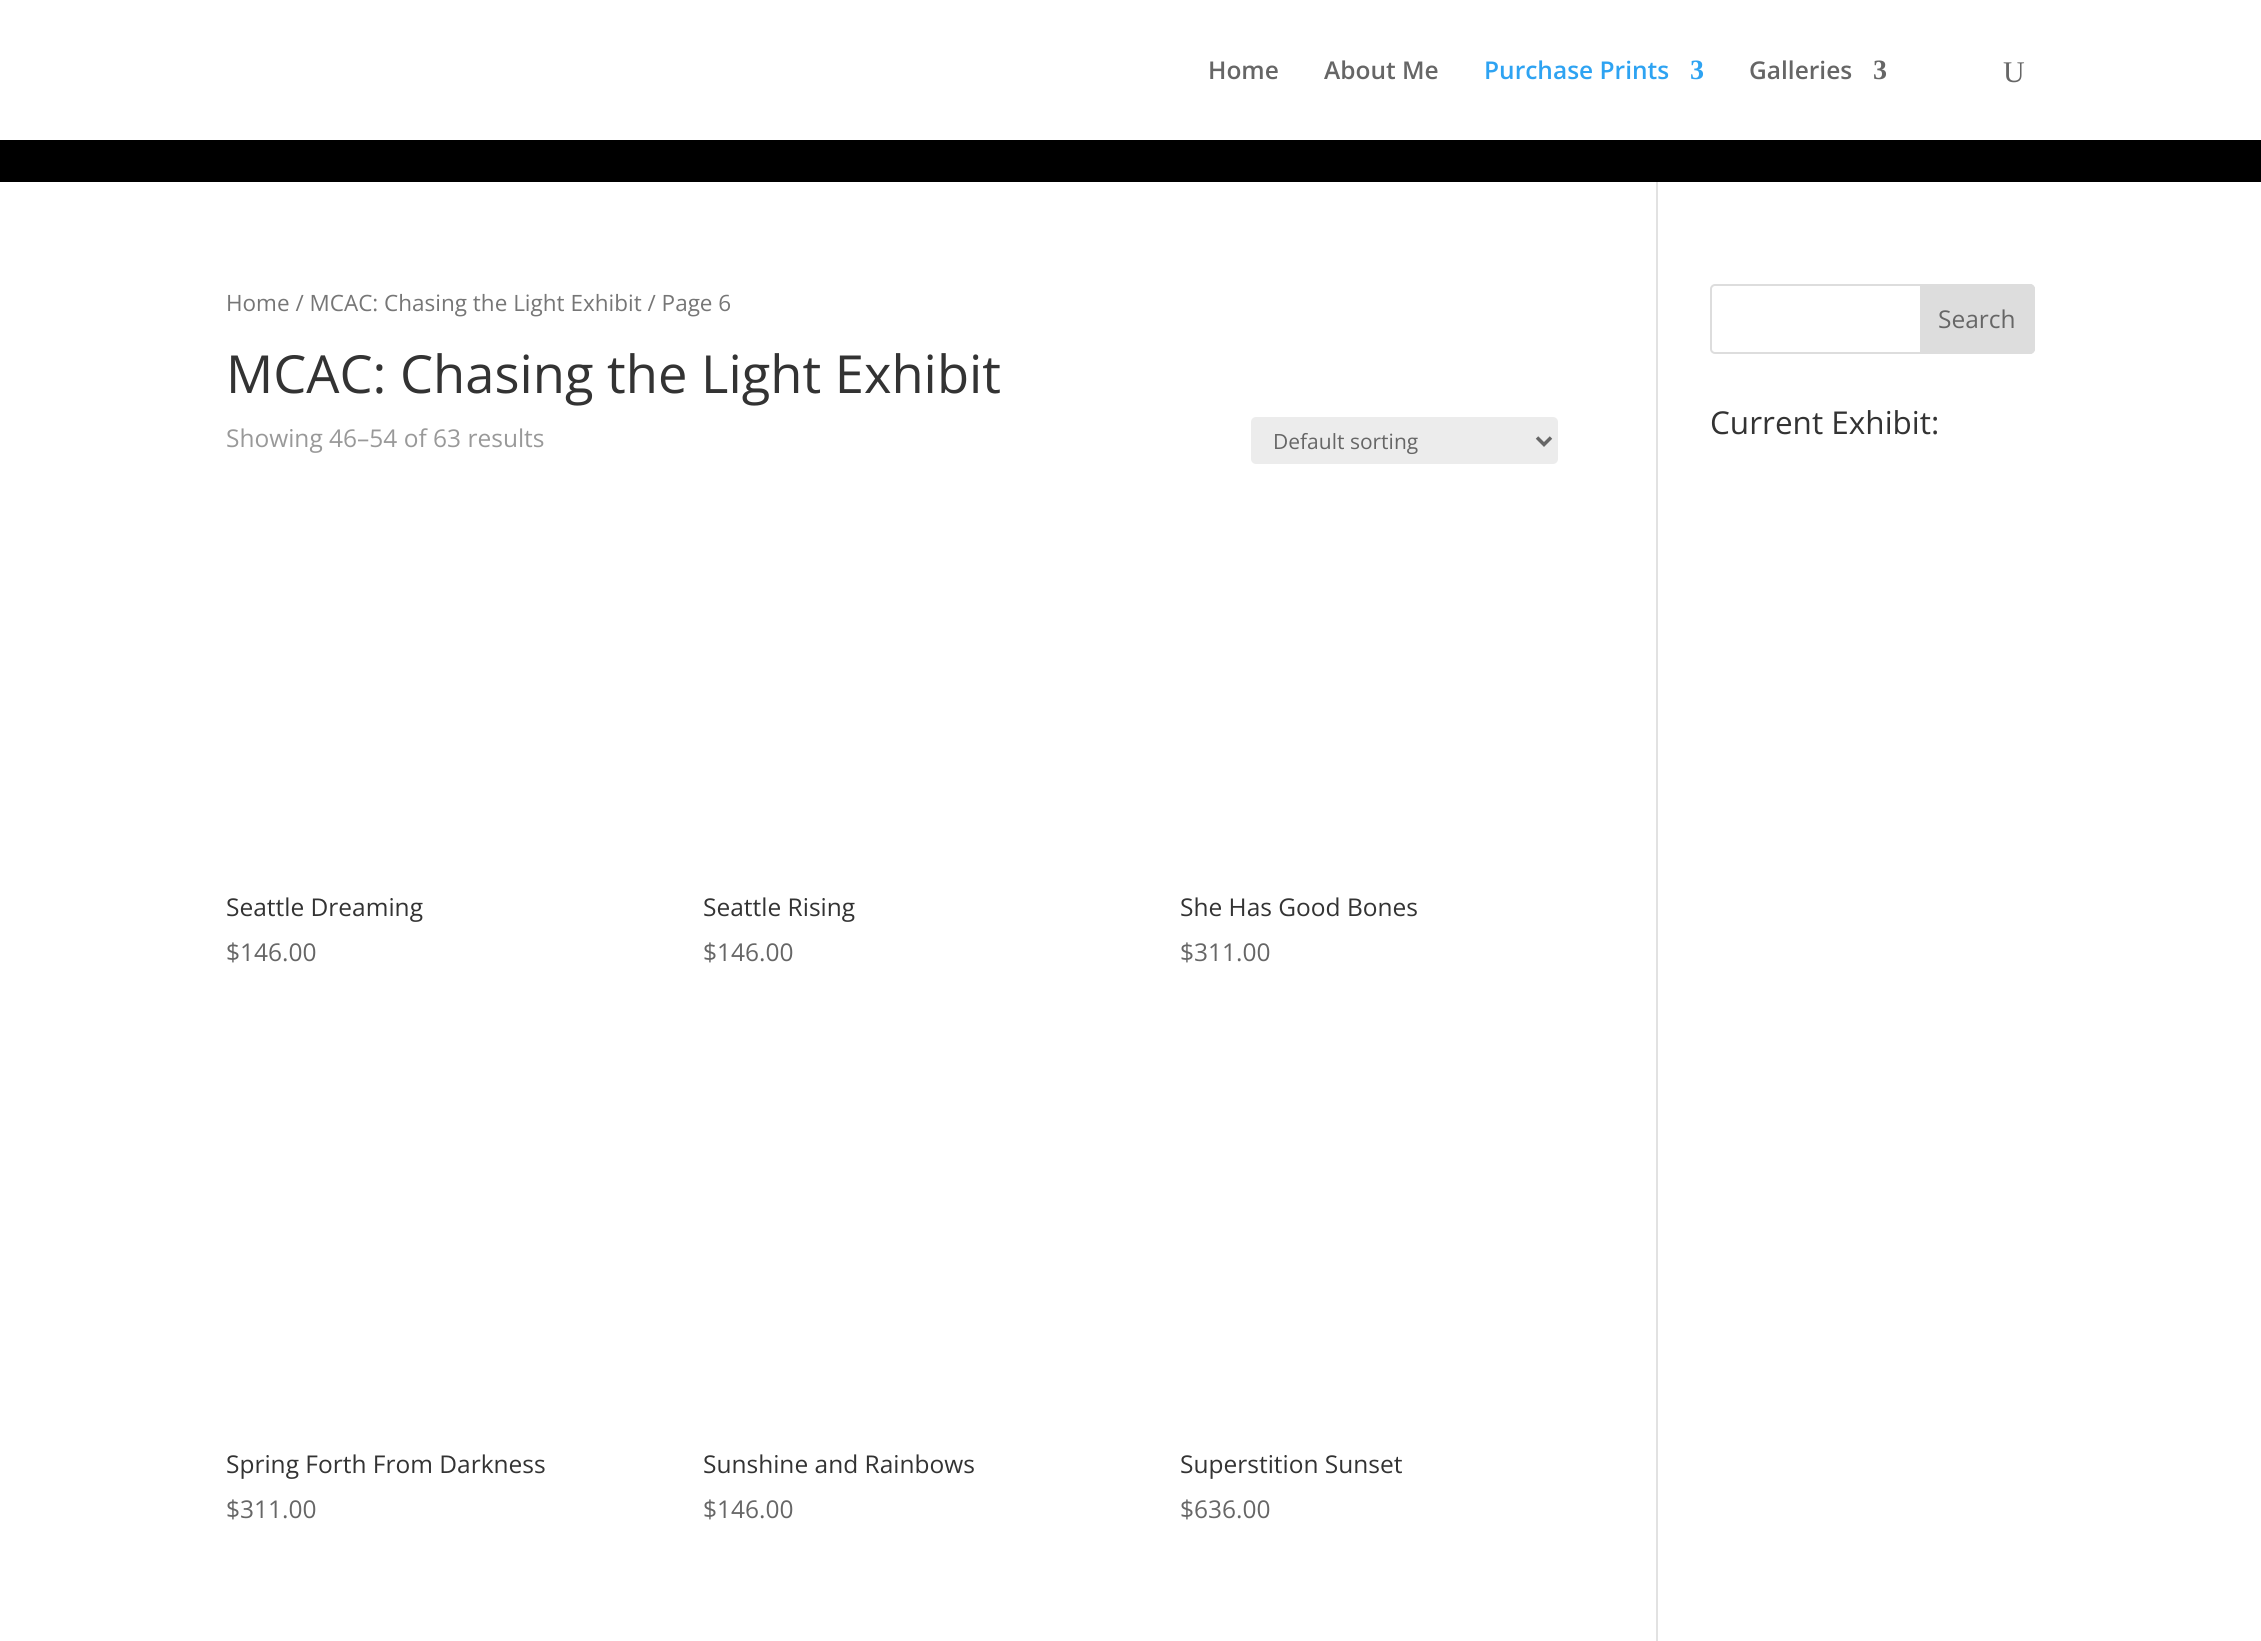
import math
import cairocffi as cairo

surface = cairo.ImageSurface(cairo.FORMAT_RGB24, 2261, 1641)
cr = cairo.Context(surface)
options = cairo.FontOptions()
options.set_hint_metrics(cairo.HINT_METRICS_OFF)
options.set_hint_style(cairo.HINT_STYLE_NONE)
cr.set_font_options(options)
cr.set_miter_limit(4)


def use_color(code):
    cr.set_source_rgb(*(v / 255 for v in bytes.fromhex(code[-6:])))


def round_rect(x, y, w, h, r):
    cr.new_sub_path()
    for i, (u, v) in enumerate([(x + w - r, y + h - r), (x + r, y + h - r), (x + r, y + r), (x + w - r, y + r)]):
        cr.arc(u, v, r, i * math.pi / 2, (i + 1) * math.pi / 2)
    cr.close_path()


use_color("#000000")
cr.paint()
use_color("#ffffff")
cr.rectangle(0, 0, 2261, 140)
cr.fill()
cr.select_font_face("Open Sans SemiBold")
cr.set_font_size(24.5)
use_color("#666666")
cr.move_to(1208, 79)
cr.show_text("Home")
cr.move_to(1324, 79)
cr.show_text("About Me")
use_color("#2ea3f2")
cr.move_to(1484, 79)
cr.show_text("Purchase Prints")
cr.select_font_face("Liberation Serif", cairo.FONT_SLANT_NORMAL, cairo.FONT_WEIGHT_BOLD)
cr.set_font_size(28)
cr.move_to(1690, 79)
cr.show_text("3")
cr.select_font_face("Open Sans SemiBold")
cr.set_font_size(24.5)
use_color("#666666")
cr.move_to(1749, 79)
cr.show_text("Galleries")
cr.select_font_face("Liberation Serif", cairo.FONT_SLANT_NORMAL, cairo.FONT_WEIGHT_BOLD)
cr.set_font_size(28)
cr.move_to(1873, 79)
cr.show_text("3")
cr.select_font_face("Liberation Serif")
cr.set_font_size(30)
cr.move_to(2003, 82)
cr.show_text("U")
use_color("#ffffff")
cr.rectangle(0, 182, 2261, 1459)
cr.fill()
use_color("#e2e2e2")
cr.rectangle(1656, 182, 2, 1459)
cr.fill()
cr.select_font_face("Open Sans")
cr.set_font_size(22.5)
use_color("#767676")
cr.move_to(226, 311)
cr.show_text("Home / MCAC: Chasing the Light Exhibit / Page 6")
cr.set_font_size(52.5)
use_color("#333333")
cr.move_to(226, 393)
cr.show_text("MCAC: Chasing the Light Exhibit")
cr.set_font_size(24.5)
use_color("#999999")
cr.move_to(226, 447)
cr.show_text("Showing 46–54 of 63 results")
use_color("#ececec")
round_rect(1251, 417, 307, 47, 5)
cr.fill()
cr.new_path()
cr.move_to(1537, 437.5)
cr.line_to(1544, 444.5)
cr.line_to(1551, 437.5)
use_color("#666666")
cr.set_line_width(3.5)
cr.stroke()
cr.set_font_size(21)
cr.move_to(1273, 449)
cr.show_text("Default sorting")
cr.set_font_size(24.5)
use_color("#333333")
cr.move_to(226, 916)
cr.show_text("Seattle Dreaming")
use_color("#666666")
cr.move_to(226, 961)
cr.show_text("$146.00")
use_color("#333333")
cr.move_to(703, 916)
cr.show_text("Seattle Rising")
use_color("#666666")
cr.move_to(703, 961)
cr.show_text("$146.00")
use_color("#333333")
cr.move_to(1180, 916)
cr.show_text("She Has Good Bones")
use_color("#666666")
cr.move_to(1180, 961)
cr.show_text("$311.00")
use_color("#333333")
cr.move_to(226, 1473)
cr.show_text("Spring Forth From Darkness")
use_color("#666666")
cr.move_to(226, 1518)
cr.show_text("$311.00")
use_color("#333333")
cr.move_to(703, 1473)
cr.show_text("Sunshine and Rainbows")
use_color("#666666")
cr.move_to(703, 1518)
cr.show_text("$146.00")
use_color("#333333")
cr.move_to(1180, 1473)
cr.show_text("Superstition Sunset")
use_color("#666666")
cr.move_to(1180, 1518)
cr.show_text("$636.00")
round_rect(1711, 285, 323, 68, 4)
use_color("#dddddd")
cr.set_line_width(2)
cr.stroke()
cr.new_path()
cr.move_to(1921, 285)
cr.line_to(2030, 285)
cr.curve_to(2032, 285, 2034, 287, 2034, 289)
cr.line_to(2034, 349)
cr.curve_to(2034, 351, 2032, 353, 2030, 353)
cr.line_to(1921, 353)
cr.close_path()
cr.fill_preserve()
cr.stroke()
use_color("#666666")
cr.move_to(1938, 328)
cr.show_text("Search")
cr.set_font_size(31.5)
use_color("#333333")
cr.move_to(1710, 434)
cr.show_text("Current Exhibit:")
surface.write_to_png("result.png")
